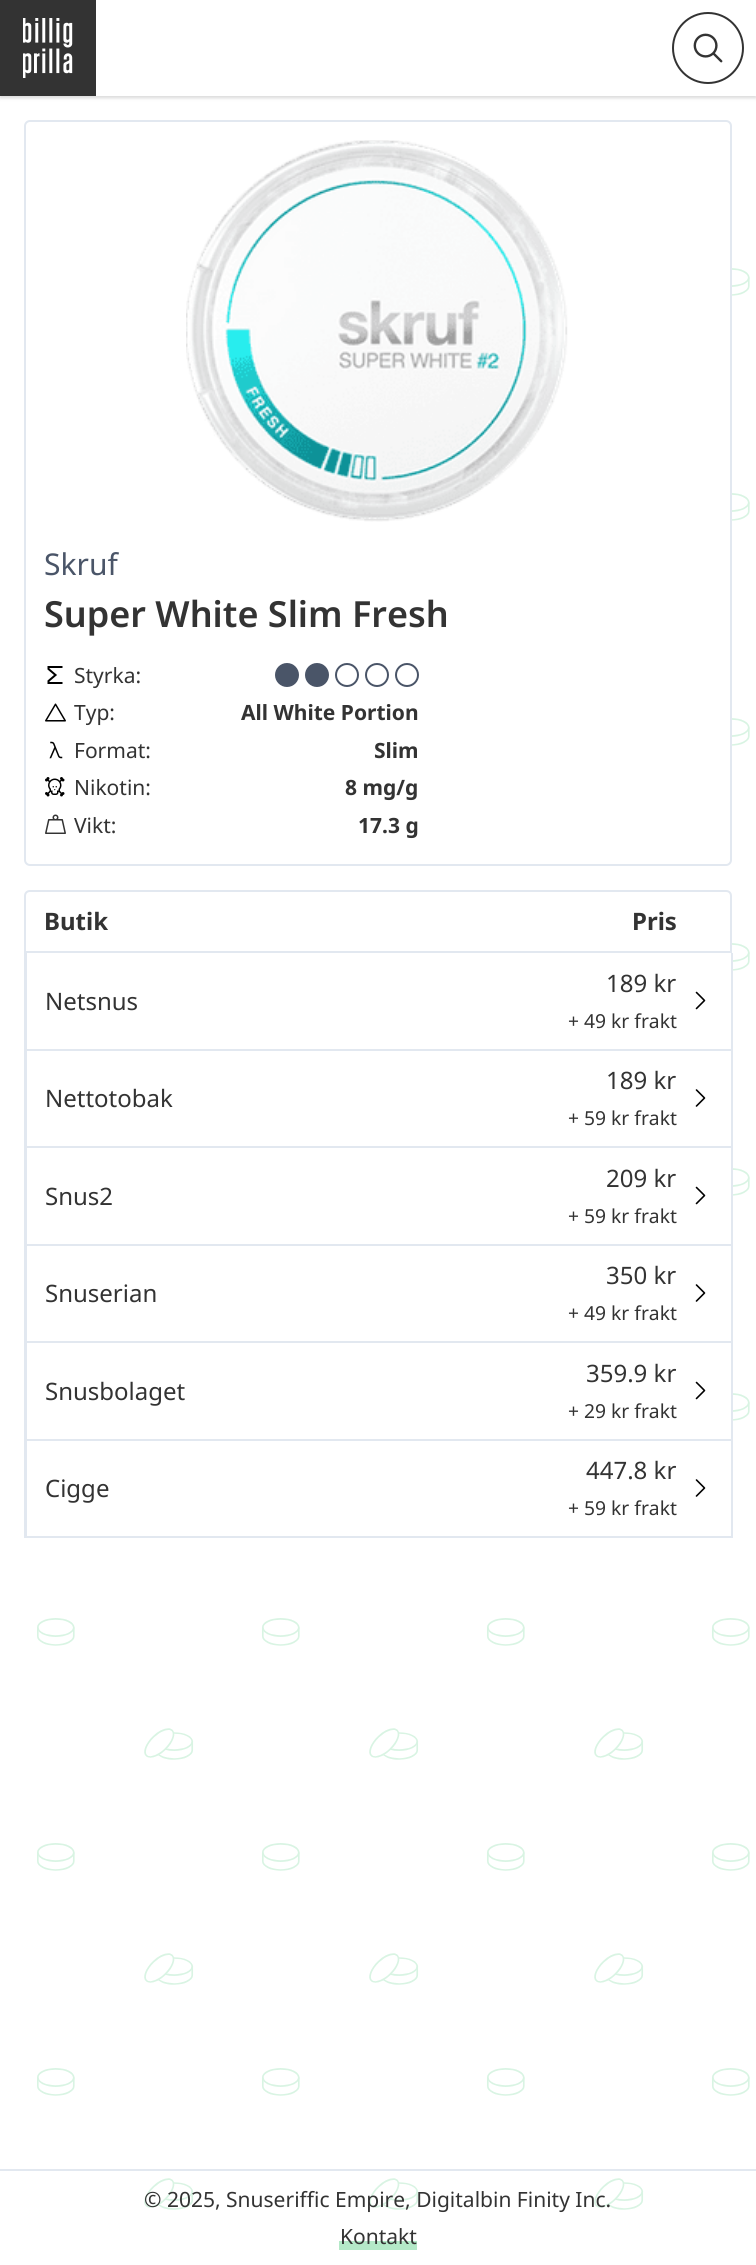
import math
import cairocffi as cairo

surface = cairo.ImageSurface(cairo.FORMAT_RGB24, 756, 2265)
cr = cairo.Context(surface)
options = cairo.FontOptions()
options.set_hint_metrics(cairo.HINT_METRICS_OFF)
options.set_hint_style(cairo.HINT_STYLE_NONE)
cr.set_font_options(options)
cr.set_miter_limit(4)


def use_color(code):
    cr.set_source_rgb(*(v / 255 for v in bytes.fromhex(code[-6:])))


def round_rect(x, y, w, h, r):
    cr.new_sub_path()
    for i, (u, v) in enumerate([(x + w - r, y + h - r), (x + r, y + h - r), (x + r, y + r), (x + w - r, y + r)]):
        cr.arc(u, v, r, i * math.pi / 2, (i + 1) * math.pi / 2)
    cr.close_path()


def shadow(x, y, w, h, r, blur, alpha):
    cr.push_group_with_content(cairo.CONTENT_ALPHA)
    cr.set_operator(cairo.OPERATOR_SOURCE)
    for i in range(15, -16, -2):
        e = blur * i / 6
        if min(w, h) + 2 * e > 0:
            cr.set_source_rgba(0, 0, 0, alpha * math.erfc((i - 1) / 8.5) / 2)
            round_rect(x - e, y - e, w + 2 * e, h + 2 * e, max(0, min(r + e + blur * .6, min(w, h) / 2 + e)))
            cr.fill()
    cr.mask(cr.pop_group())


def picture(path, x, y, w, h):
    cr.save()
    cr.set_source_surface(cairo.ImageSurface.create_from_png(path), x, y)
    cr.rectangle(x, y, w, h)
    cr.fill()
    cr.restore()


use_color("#ffffff")
cr.paint()
picture("img1.png", 37, 268, 713, 1942)
use_color("#000000")
shadow(0, 2, 756, 96, 0, 1.5, 0.06)
shadow(0, 2, 756, 96, 0, 2, 0.1)
use_color("#ffffff")
cr.rectangle(96, 0, 660, 96)
cr.fill()
use_color("#333333")
cr.rectangle(0, 0, 96, 96)
cr.fill()
picture("img2.png", 23, 18, 50, 60)
cr.arc(708, 48, 35, 0, 2 * math.pi)
cr.stroke()
picture("img3.png", 693, 33, 30, 30)
use_color("#ffffff")
round_rect(25, 121, 706, 744, 5)
cr.fill_preserve()
use_color("#e2e8f0")
cr.stroke()
picture("img4.png", 186, 140, 382, 382)
cr.select_font_face("Noto Sans")
cr.set_font_size(30)
use_color("#4a5568")
cr.move_to(44, 575)
cr.show_text("Skruf")
cr.select_font_face("Noto Sans SemiBold")
cr.set_font_size(36)
use_color("#333333")
cr.move_to(44, 627)
cr.show_text("Super White Slim Fresh")
picture("img5.png", 47, 666, 16, 18)
cr.select_font_face("Noto Sans")
cr.set_font_size(21)
cr.move_to(74, 683)
cr.show_text("Styrka:")
use_color("#4a5568")
cr.new_path()
cr.arc(287, 675, 11, 0, 2 * math.pi)
cr.fill_preserve()
cr.stroke()
cr.arc(317, 675, 11, 0, 2 * math.pi)
cr.fill_preserve()
cr.stroke()
cr.arc(347, 675, 11, 0, 2 * math.pi)
cr.stroke()
cr.arc(377, 675, 11, 0, 2 * math.pi)
cr.stroke()
cr.arc(407, 675, 11, 0, 2 * math.pi)
cr.stroke()
picture("img6.png", 45, 703, 21, 19)
use_color("#333333")
cr.move_to(74, 720)
cr.show_text("Typ:")
cr.select_font_face("Noto Sans", cairo.FONT_SLANT_NORMAL, cairo.FONT_WEIGHT_BOLD)
cr.move_to(241, 720)
cr.show_text("All White Portion")
picture("img7.png", 49, 741, 14, 18)
cr.select_font_face("Noto Sans")
cr.move_to(74, 758)
cr.show_text("Format:")
cr.select_font_face("Noto Sans", cairo.FONT_SLANT_NORMAL, cairo.FONT_WEIGHT_BOLD)
cr.move_to(374, 758)
cr.show_text("Slim")
picture("img8.png", 45, 777, 20, 20)
cr.select_font_face("Noto Sans")
cr.move_to(74, 795)
cr.show_text("Nikotin:")
cr.select_font_face("Noto Sans", cairo.FONT_SLANT_NORMAL, cairo.FONT_WEIGHT_BOLD)
cr.move_to(345, 795)
cr.show_text("8 mg/g")
picture("img9.png", 45, 814, 21, 20)
cr.select_font_face("Noto Sans")
cr.move_to(74, 833)
cr.show_text("Vikt:")
cr.select_font_face("Noto Sans", cairo.FONT_SLANT_NORMAL, cairo.FONT_WEIGHT_BOLD)
cr.move_to(358, 833)
cr.show_text("17.3 g")
use_color("#ffffff")
round_rect(24, 890, 708, 648, 6)
cr.fill()
cr.new_path()
cr.move_to(30, 891)
cr.line_to(726, 891)
cr.curve_to(729, 891, 731, 893, 731, 896)
cr.line_to(731, 952)
cr.line_to(25, 952)
cr.line_to(25, 896)
cr.curve_to(25, 893, 27, 891, 30, 891)
cr.close_path()
use_color("#e2e8f0")
cr.stroke()
cr.set_font_size(24)
use_color("#333333")
cr.move_to(44, 930)
cr.show_text("Butik")
cr.move_to(632, 930)
cr.show_text("Pris")
use_color("#e2e8f0")
cr.rectangle(24, 953, 3, 585)
cr.fill()
cr.rectangle(731, 953, 2, 97)
cr.fill()
cr.rectangle(27, 1049, 705, 2)
cr.fill()
cr.select_font_face("Noto Sans")
use_color("#333333")
cr.move_to(45, 1010)
cr.show_text("Netsnus")
cr.move_to(606, 992)
cr.show_text("189 kr")
cr.set_font_size(19.25)
cr.move_to(568, 1028)
cr.show_text("+ 49 kr frakt")
picture("img10.png", 695, 991, 11, 19)
use_color("#e2e8f0")
cr.rectangle(731, 1050, 2, 195)
cr.fill()
cr.rectangle(27, 1146, 705, 2)
cr.fill()
cr.set_font_size(24)
use_color("#333333")
cr.move_to(45, 1107)
cr.show_text("Nettotobak")
cr.move_to(606, 1089)
cr.show_text("189 kr")
cr.set_font_size(19.25)
cr.move_to(568, 1125)
cr.show_text("+ 59 kr frakt")
picture("img11.png", 695, 1089, 11, 18)
use_color("#e2e8f0")
cr.rectangle(27, 1244, 705, 2)
cr.fill()
cr.set_font_size(24)
use_color("#333333")
cr.move_to(45, 1205)
cr.show_text("Snus2")
cr.move_to(606, 1187)
cr.show_text("209 kr")
cr.set_font_size(19.25)
cr.move_to(568, 1223)
cr.show_text("+ 59 kr frakt")
picture("img10.png", 695, 1186, 11, 19)
use_color("#e2e8f0")
cr.rectangle(731, 1245, 2, 195)
cr.fill()
cr.rectangle(27, 1341, 705, 2)
cr.fill()
cr.set_font_size(24)
use_color("#333333")
cr.move_to(45, 1302)
cr.show_text("Snuserian")
cr.move_to(606, 1284)
cr.show_text("350 kr")
cr.set_font_size(19.25)
cr.move_to(568, 1320)
cr.show_text("+ 49 kr frakt")
picture("img11.png", 695, 1284, 11, 18)
use_color("#e2e8f0")
cr.rectangle(27, 1439, 705, 2)
cr.fill()
cr.set_font_size(24)
use_color("#333333")
cr.move_to(45, 1400)
cr.show_text("Snusbolaget")
cr.move_to(586, 1382)
cr.show_text("359.9 kr")
cr.set_font_size(19.25)
cr.move_to(568, 1418)
cr.show_text("+ 29 kr frakt")
picture("img10.png", 695, 1381, 11, 19)
use_color("#e2e8f0")
cr.rectangle(731, 1440, 2, 98)
cr.fill()
cr.rectangle(27, 1536, 705, 2)
cr.fill()
cr.set_font_size(24)
use_color("#333333")
cr.move_to(45, 1497)
cr.show_text("Cigge")
cr.move_to(586, 1479)
cr.show_text("447.8 kr")
cr.set_font_size(19.25)
cr.move_to(568, 1515)
cr.show_text("+ 59 kr frakt")
picture("img11.png", 695, 1479, 11, 18)
use_color("#e2e8f0")
cr.rectangle(0, 2169, 756, 2)
cr.fill()
cr.set_font_size(21)
use_color("#333333")
cr.move_to(144, 2207)
cr.show_text("© 2025, Snuseriffic Empire, Digitalbin Finity Inc.")
use_color("#b4e9c8")
cr.rectangle(339, 2241, 78, 9)
cr.fill()
use_color("#333333")
cr.move_to(340, 2244)
cr.show_text("Kontakt")
surface.write_to_png("result.png")
